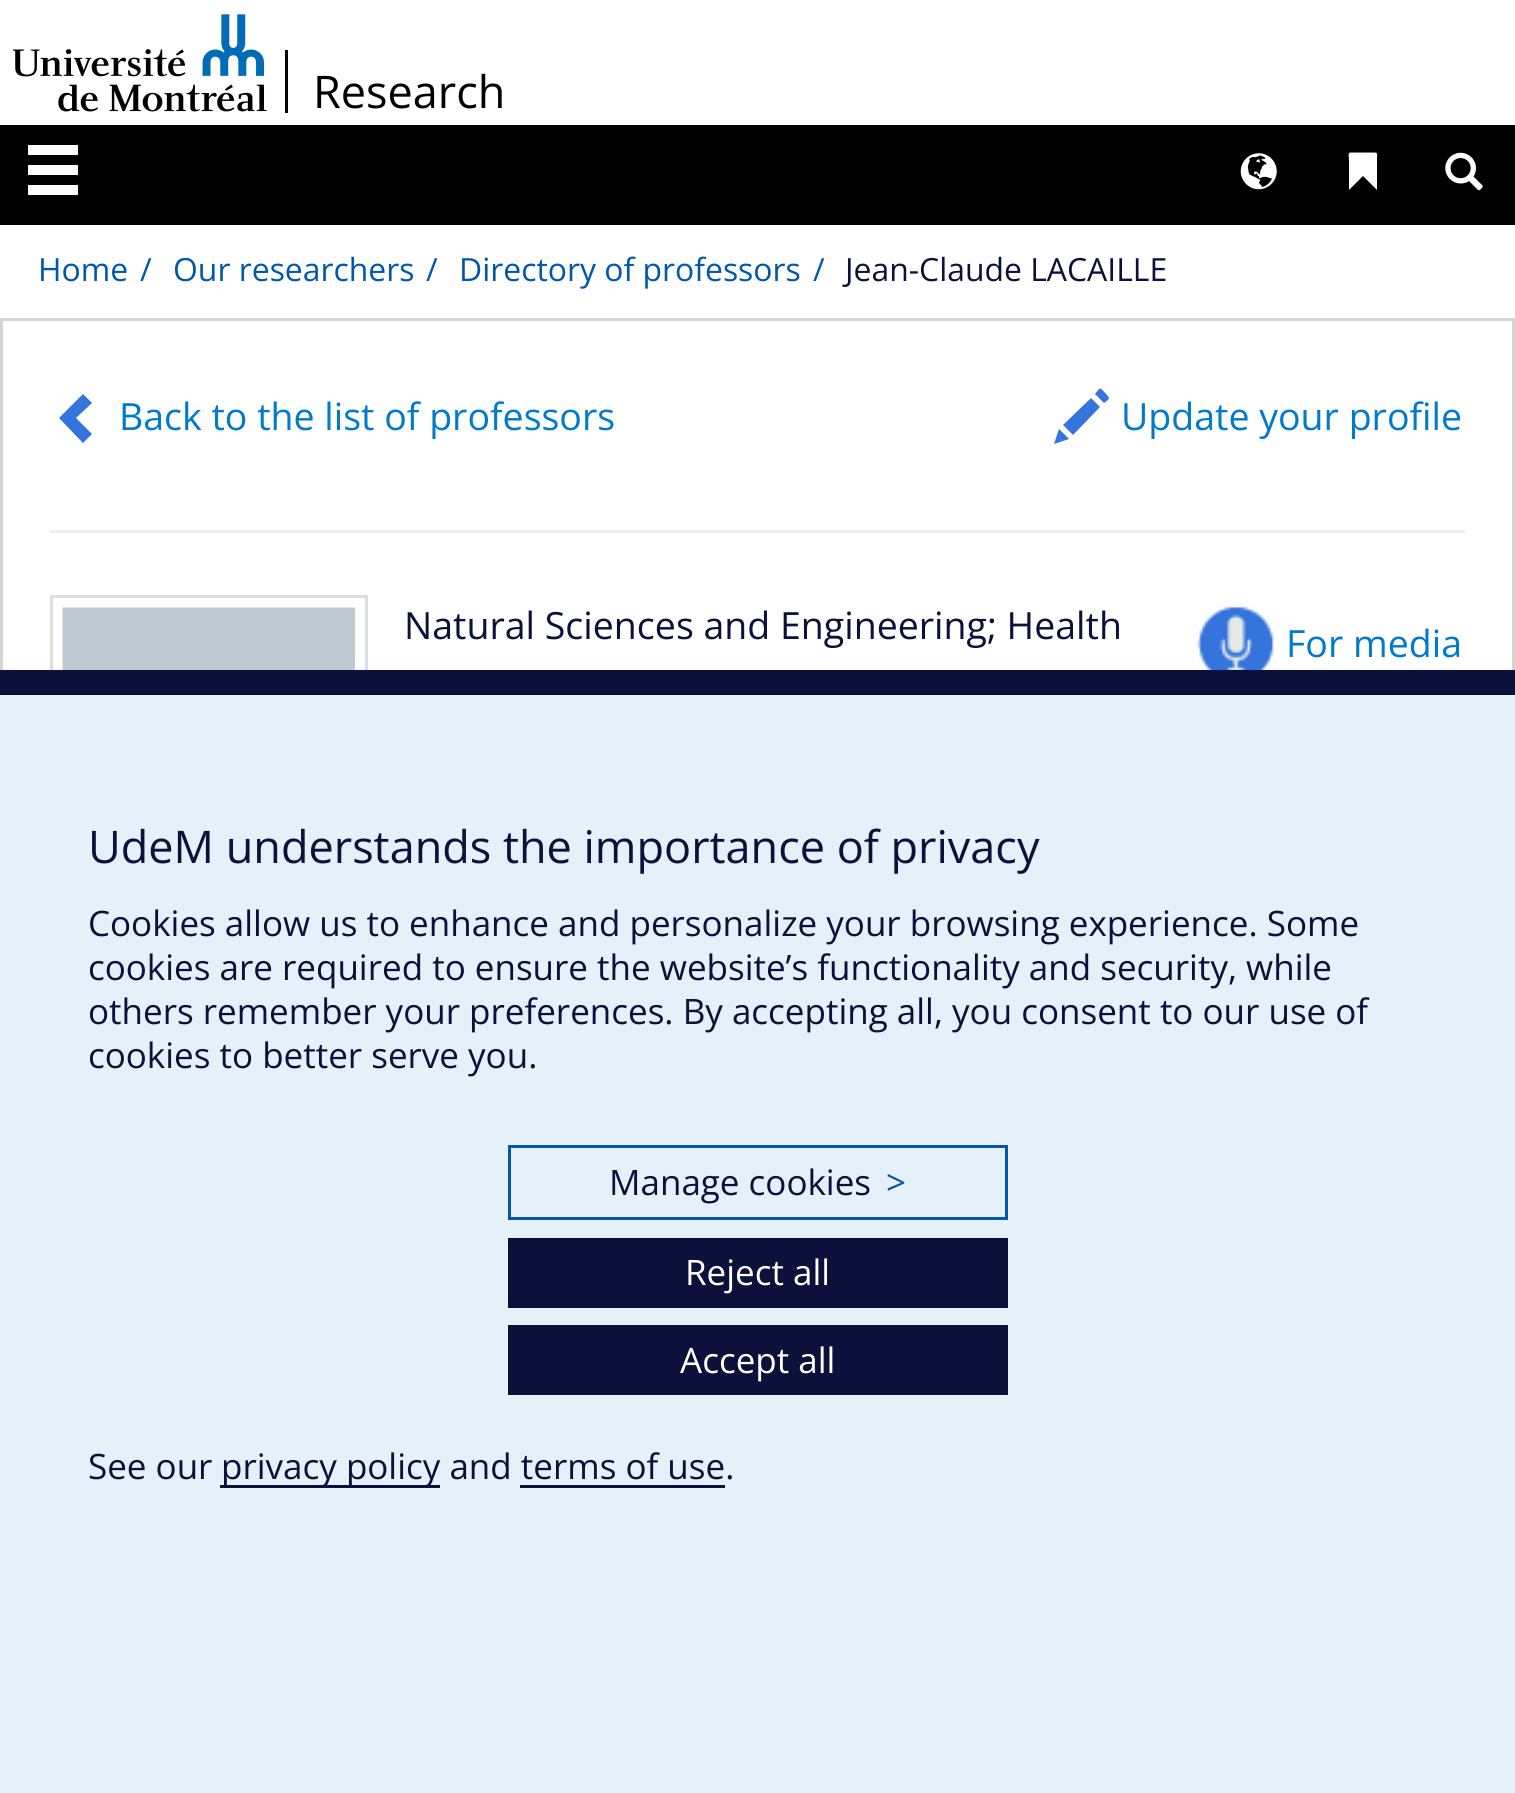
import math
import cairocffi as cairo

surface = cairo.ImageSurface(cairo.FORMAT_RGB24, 1515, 1793)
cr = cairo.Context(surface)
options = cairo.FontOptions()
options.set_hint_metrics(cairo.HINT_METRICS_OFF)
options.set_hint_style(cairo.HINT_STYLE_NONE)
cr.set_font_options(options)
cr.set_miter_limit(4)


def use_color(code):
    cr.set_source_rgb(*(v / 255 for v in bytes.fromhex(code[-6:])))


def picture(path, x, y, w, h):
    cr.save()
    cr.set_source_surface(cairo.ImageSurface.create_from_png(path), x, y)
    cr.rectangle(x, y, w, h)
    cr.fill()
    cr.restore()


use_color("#ffffff")
cr.paint()
picture("img1.png", 13, 14, 254, 98)
use_color("#000000")
cr.rectangle(285, 50, 3, 63)
cr.fill()
cr.select_font_face("Open Sans")
cr.set_font_size(45)
cr.move_to(313, 108)
cr.show_text("Research")
cr.rectangle(0, 125, 1515, 100)
cr.fill()
use_color("#ffffff")
cr.rectangle(28, 145, 50, 10)
cr.fill()
cr.rectangle(28, 165, 50, 10)
cr.fill()
cr.rectangle(28, 185, 50, 10)
cr.fill()
picture("img2.png", 1240, 153, 37, 37)
cr.new_path()
cr.move_to(1350.5, 152.5)
cr.line_to(1371, 152.5)
cr.curve_to(1378.5, 152.5, 1377, 152, 1377, 160)
cr.line_to(1377, 190)
cr.line_to(1363, 176)
cr.line_to(1349, 190)
cr.line_to(1349, 160)
cr.curve_to(1349, 157, 1347.5, 152.5, 1350.5, 152.5)
cr.close_path()
cr.fill()
picture("img3.png", 1445, 152, 38, 39)
cr.set_font_size(31.9)
use_color("#0057ac")
cr.move_to(38, 281)
cr.show_text("Home")
cr.move_to(140, 281)
cr.show_text("/")
cr.move_to(173, 281)
cr.show_text("Our researchers")
cr.move_to(426, 281)
cr.show_text("/")
cr.move_to(459, 281)
cr.show_text("Directory of professors")
cr.move_to(813, 281)
cr.show_text("/")
use_color("#0b113a")
cr.move_to(845, 281)
cr.show_text("Jean-Claude LACAILLE")
cr.rectangle(1.5, 319.5, 1512, 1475)
use_color("#d4d4d4")
cr.set_line_width(3)
cr.stroke()
use_color("#3573dd")
cr.new_path()
cr.move_to(92, 403)
cr.line_to(76, 418)
cr.line_to(92, 434)
cr.line_to(83, 443)
cr.line_to(59, 418)
cr.line_to(83, 394)
cr.close_path()
cr.fill()
cr.set_font_size(37.5)
use_color("#007acc")
cr.move_to(119, 430)
cr.show_text("Back to the list of professors")
use_color("#3573dd")
cr.new_path()
cr.move_to(1099, 389)
cr.curve_to(1101, 387, 1105, 393, 1106, 394)
cr.curve_to(1111, 399, 1109, 399, 1104, 403)
cr.line_to(1095, 394)
cr.close_path()
cr.move_to(1100, 407)
cr.line_to(1073, 435)
cr.line_to(1063, 425)
cr.line_to(1091, 398)
cr.close_path()
cr.move_to(1069, 439)
cr.line_to(1054, 444)
cr.line_to(1059, 429)
cr.close_path()
cr.fill()
use_color("#007acc")
cr.move_to(1121, 430)
cr.show_text("Update your profile")
use_color("#eeeeee")
cr.rectangle(50, 530, 1415, 3)
cr.fill()
cr.rectangle(51.5, 596.5, 315, 315)
use_color("#dddddd")
cr.stroke()
picture("img4.png", 62, 607, 293, 63)
use_color("#0b113a")
cr.move_to(404, 639)
cr.show_text("Natural Sciences and Engineering; Health")
picture("img5.png", 1197, 606, 77, 64)
use_color("#007acc")
cr.move_to(1286, 657)
cr.show_text("For media")
use_color("#e5f0f8")
cr.rectangle(0, 695, 1515, 1098)
cr.fill()
use_color("#0b113a")
cr.rectangle(0, 670, 1515, 25)
cr.fill()
cr.set_font_size(45)
cr.move_to(88, 863)
cr.show_text("UdeM understands the importance of privacy")
cr.set_font_size(35)
cr.move_to(88, 936)
cr.show_text("Cookies allow us to enhance and personalize your browsing experience. Some")
cr.move_to(88, 980)
cr.show_text("cookies are required to ensure the website’s functionality and security, while")
cr.move_to(88, 1024)
cr.show_text("others remember your preferences. By accepting all, you consent to our use of")
cr.move_to(88, 1068)
cr.show_text("cookies to better serve you.")
cr.rectangle(509.5, 1146.5, 497, 72)
use_color("#0057ac")
cr.stroke()
use_color("#0b113a")
cr.move_to(609, 1195)
cr.show_text("Manage cookies")
use_color("#0057ac")
cr.move_to(886, 1195)
cr.show_text(">")
use_color("#0b113a")
cr.rectangle(508, 1238, 500, 70)
cr.fill()
use_color("#ffffff")
cr.move_to(685, 1285)
cr.show_text("Reject all")
use_color("#0b113a")
cr.rectangle(508, 1325, 500, 70)
cr.fill()
use_color("#ffffff")
cr.move_to(680, 1373)
cr.show_text("Accept all")
use_color("#0b113a")
cr.move_to(88, 1479)
cr.show_text("See our")
cr.rectangle(220, 1485, 220, 3)
cr.fill()
cr.move_to(221, 1479)
cr.show_text("privacy policy and terms of use.")
cr.rectangle(520, 1485, 205, 3)
cr.fill()
surface.write_to_png("result.png")
